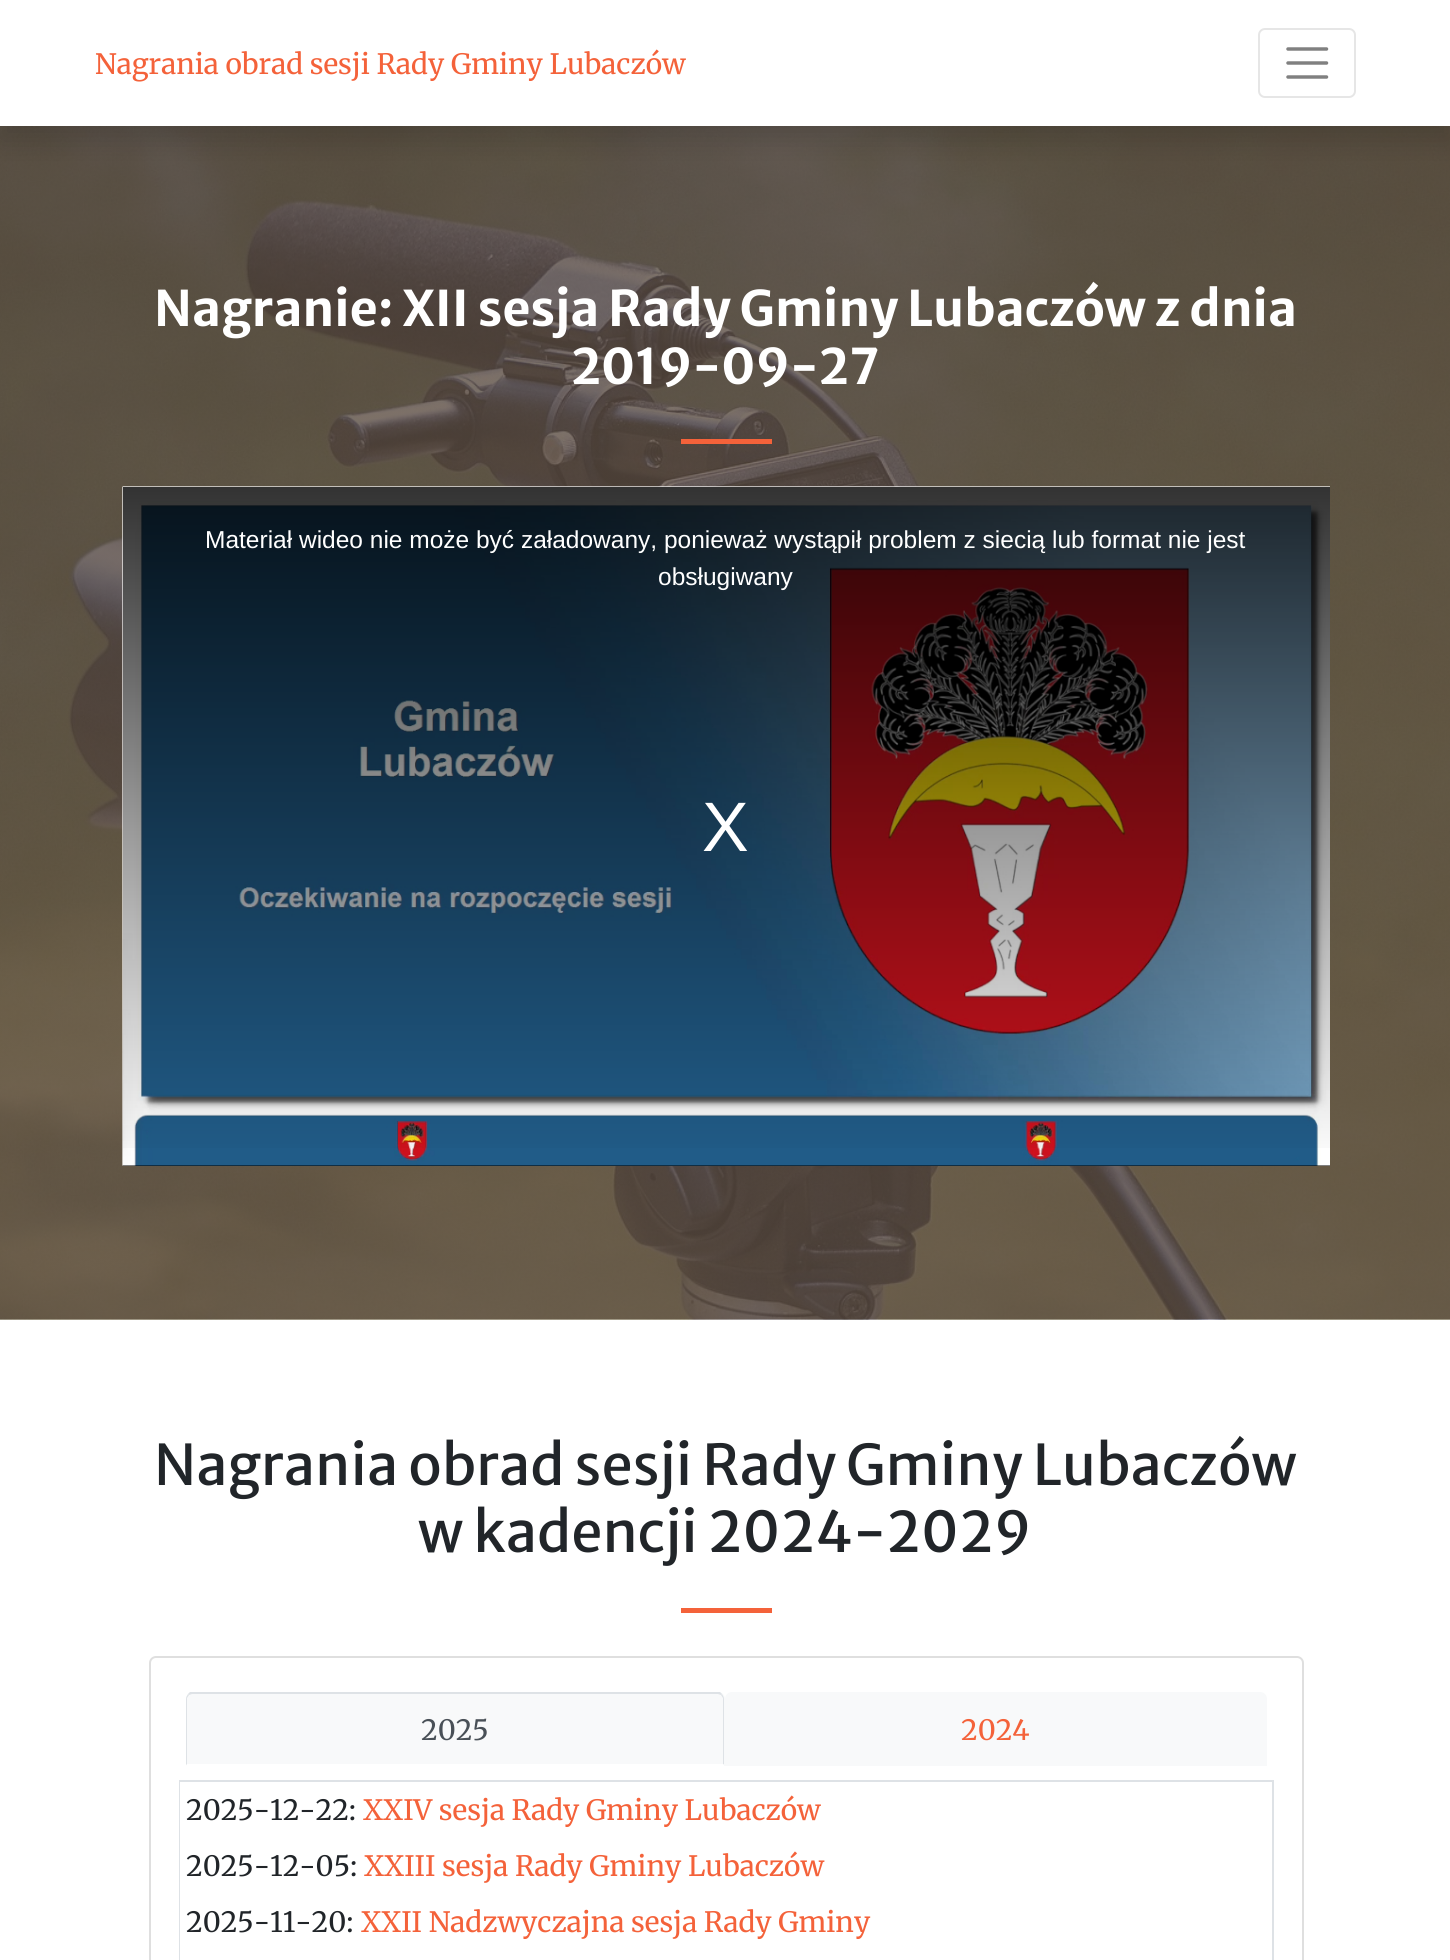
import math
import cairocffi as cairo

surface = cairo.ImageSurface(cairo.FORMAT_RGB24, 1450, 1960)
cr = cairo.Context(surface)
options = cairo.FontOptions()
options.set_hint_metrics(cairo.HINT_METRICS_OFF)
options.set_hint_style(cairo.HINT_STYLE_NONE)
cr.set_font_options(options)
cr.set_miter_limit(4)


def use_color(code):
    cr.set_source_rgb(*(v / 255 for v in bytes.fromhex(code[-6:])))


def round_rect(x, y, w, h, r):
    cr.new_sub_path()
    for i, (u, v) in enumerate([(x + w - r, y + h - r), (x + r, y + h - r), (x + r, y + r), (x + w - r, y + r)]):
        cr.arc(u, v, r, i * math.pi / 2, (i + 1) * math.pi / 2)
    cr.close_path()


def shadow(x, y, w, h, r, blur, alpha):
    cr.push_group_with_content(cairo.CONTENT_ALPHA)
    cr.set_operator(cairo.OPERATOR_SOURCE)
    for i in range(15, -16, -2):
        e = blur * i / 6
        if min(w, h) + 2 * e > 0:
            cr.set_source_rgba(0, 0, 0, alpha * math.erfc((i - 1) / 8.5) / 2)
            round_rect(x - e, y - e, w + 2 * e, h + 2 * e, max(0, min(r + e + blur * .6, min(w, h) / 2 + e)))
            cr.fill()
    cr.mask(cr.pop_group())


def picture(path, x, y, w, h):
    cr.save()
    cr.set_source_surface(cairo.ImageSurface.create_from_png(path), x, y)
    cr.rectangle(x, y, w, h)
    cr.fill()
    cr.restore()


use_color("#ffffff")
cr.paint()
picture("img1.png", 0, 126, 1450, 1194)
use_color("#000000")
shadow(0, 14, 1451, 126, 0, 14, 0.15)
use_color("#ffffff")
cr.rectangle(0, 0, 1450, 126)
cr.fill()
cr.select_font_face("Merriweather")
cr.set_font_size(28)
use_color("#f4623a")
cr.move_to(95, 74)
cr.show_text("Nagrania obrad sesji Rady Gminy Lubaczów")
round_rect(1259, 29, 96, 68, 6)
use_color("#e6e6e6")
cr.stroke()
cr.new_path()
cr.move_to(1288, 49)
cr.line_to(1326.5, 49)
cr.move_to(1288, 63)
cr.line_to(1326.5, 63)
cr.move_to(1288, 77)
cr.line_to(1326.5, 77)
use_color("#808080")
cr.set_line_width(3.5)
cr.set_line_cap(cairo.LINE_CAP_ROUND)
cr.stroke()
cr.select_font_face("Merriweather Sans", cairo.FONT_SLANT_NORMAL, cairo.FONT_WEIGHT_BOLD)
cr.set_font_size(49)
use_color("#ffffff")
cr.move_to(154, 326)
cr.show_text("Nagranie: XII sesja Rady Gminy Lubaczów z dnia")
cr.move_to(571, 384)
cr.show_text("2019-09-27")
use_color("#f4623a")
cr.rectangle(681, 439, 91, 5)
cr.fill()
picture("img2.png", 122, 486, 1208, 680)
use_color("#000000")
cr.rectangle(123, 1165, 1207, 1)
cr.fill()
picture("img3.png", 122, 486, 1208, 680)
gradient = cairo.LinearGradient(726, 487, 726, 1166)
gradient.add_color_stop_rgba(0, 0, 0, 0, 0.8)
gradient.add_color_stop_rgba(1, 0, 0, 0, 0)
cr.set_source(gradient)
cr.rectangle(123, 487, 1207, 661)
cr.fill()
cr.select_font_face("Liberation Sans")
cr.set_font_size(24.5)
use_color("#ffffff")
cr.move_to(205, 548)
cr.show_text("Materiał wideo nie może być załadowany, ponieważ wystąpił problem z siecią lub format nie jest")
cr.move_to(658, 585)
cr.show_text("obsługiwany")
cr.set_font_size(70)
cr.move_to(702, 851)
cr.show_text("X")
cr.select_font_face("Merriweather Sans")
cr.set_font_size(56)
use_color("#212529")
cr.move_to(154, 1485)
cr.show_text("Nagrania obrad sesji Rady Gminy Lubaczów")
cr.move_to(418, 1552)
cr.show_text("w kadencji 2024-2029")
use_color("#f4623a")
cr.rectangle(681, 1608, 91, 5)
cr.fill()
round_rect(150, 1657, 1153, 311, 6)
use_color("#dfdfdf")
cr.set_line_width(2)
cr.set_line_cap(cairo.LINE_CAP_BUTT)
cr.stroke()
use_color("#f8f9fa")
cr.new_path()
cr.move_to(193, 1692)
cr.line_to(718, 1692)
cr.curve_to(722, 1692, 725, 1695, 725, 1699)
cr.line_to(725, 1766)
cr.line_to(186, 1766)
cr.line_to(186, 1699)
cr.curve_to(186, 1695, 189, 1692, 193, 1692)
cr.close_path()
cr.fill()
use_color("#dee2e6")
cr.new_path()
cr.move_to(192, 1694)
cr.line_to(189, 1695)
cr.line_to(188, 1694)
cr.line_to(190, 1692)
cr.line_to(720, 1692)
cr.line_to(722, 1694)
cr.line_to(721, 1695)
cr.line_to(718, 1694)
cr.close_path()
cr.fill()
cr.new_path()
cr.move_to(722, 1694)
cr.curve_to(723, 1696, 724, 1697, 724, 1699)
cr.line_to(724, 1765)
cr.line_to(723, 1764)
cr.line_to(723, 1698)
cr.line_to(721, 1695)
cr.close_path()
cr.fill()
use_color("#ffffff")
cr.new_path()
cr.move_to(186, 1766)
cr.line_to(187, 1764)
cr.line_to(723, 1764)
cr.line_to(724, 1765)
cr.line_to(724, 1766)
cr.close_path()
cr.fill()
use_color("#dee2e6")
cr.new_path()
cr.move_to(186, 1765)
cr.line_to(186, 1699)
cr.curve_to(186, 1697, 187, 1696, 188, 1694)
cr.line_to(189, 1695)
cr.line_to(187, 1698)
cr.line_to(187, 1764)
cr.close_path()
cr.fill()
cr.select_font_face("Merriweather")
cr.set_font_size(28)
use_color("#495057")
cr.move_to(421, 1740)
cr.show_text("2025")
use_color("#f8f9fa")
cr.new_path()
cr.move_to(732, 1692)
cr.line_to(1260, 1692)
cr.curve_to(1264, 1692, 1267, 1695, 1267, 1699)
cr.line_to(1267, 1766)
cr.line_to(725, 1766)
cr.line_to(725, 1699)
cr.curve_to(725, 1695, 728, 1692, 732, 1692)
cr.close_path()
cr.fill()
use_color("#f4623a")
cr.move_to(961, 1740)
cr.show_text("2024")
cr.rectangle(180, 1781, 1093, 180)
use_color("#dee2e6")
cr.stroke()
use_color("#ffffff")
cr.rectangle(180, 1782, 1, 178)
cr.fill()
use_color("#212529")
cr.move_to(186, 1820)
cr.show_text("2025-12-22:")
use_color("#f4623a")
cr.move_to(363, 1820)
cr.show_text("XXIV sesja Rady Gminy Lubaczów")
use_color("#212529")
cr.move_to(186, 1876)
cr.show_text("2025-12-05:")
use_color("#f4623a")
cr.move_to(364, 1876)
cr.show_text("XXIII sesja Rady Gminy Lubaczów")
use_color("#212529")
cr.move_to(186, 1932)
cr.show_text("2025-11-20:")
use_color("#f4623a")
cr.move_to(361, 1932)
cr.show_text("XXII Nadzwyczajna sesja Rady Gminy")
surface.write_to_png("result.png")
